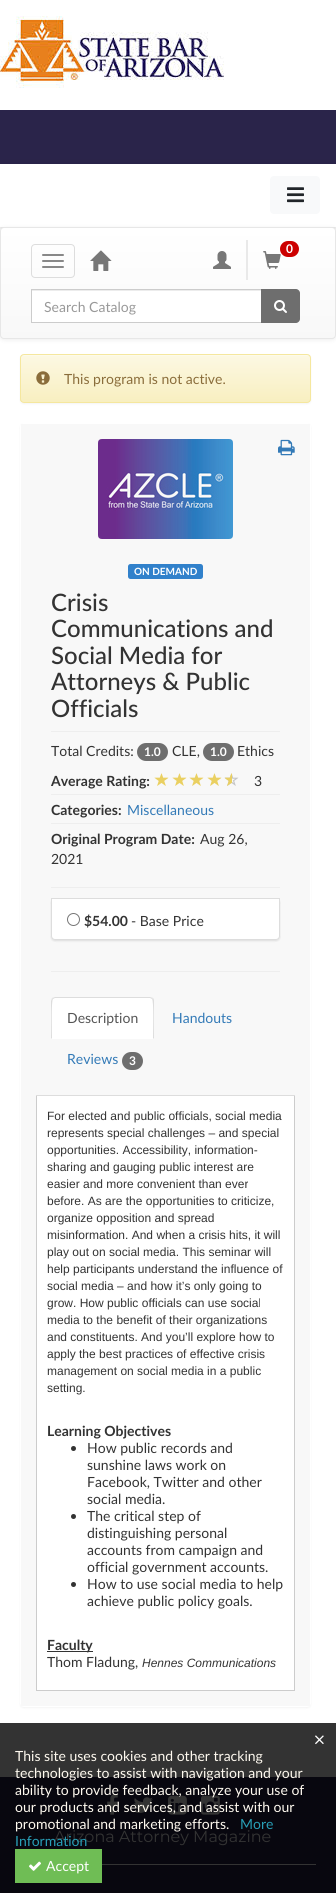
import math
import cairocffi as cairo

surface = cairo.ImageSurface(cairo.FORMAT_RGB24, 336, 1893)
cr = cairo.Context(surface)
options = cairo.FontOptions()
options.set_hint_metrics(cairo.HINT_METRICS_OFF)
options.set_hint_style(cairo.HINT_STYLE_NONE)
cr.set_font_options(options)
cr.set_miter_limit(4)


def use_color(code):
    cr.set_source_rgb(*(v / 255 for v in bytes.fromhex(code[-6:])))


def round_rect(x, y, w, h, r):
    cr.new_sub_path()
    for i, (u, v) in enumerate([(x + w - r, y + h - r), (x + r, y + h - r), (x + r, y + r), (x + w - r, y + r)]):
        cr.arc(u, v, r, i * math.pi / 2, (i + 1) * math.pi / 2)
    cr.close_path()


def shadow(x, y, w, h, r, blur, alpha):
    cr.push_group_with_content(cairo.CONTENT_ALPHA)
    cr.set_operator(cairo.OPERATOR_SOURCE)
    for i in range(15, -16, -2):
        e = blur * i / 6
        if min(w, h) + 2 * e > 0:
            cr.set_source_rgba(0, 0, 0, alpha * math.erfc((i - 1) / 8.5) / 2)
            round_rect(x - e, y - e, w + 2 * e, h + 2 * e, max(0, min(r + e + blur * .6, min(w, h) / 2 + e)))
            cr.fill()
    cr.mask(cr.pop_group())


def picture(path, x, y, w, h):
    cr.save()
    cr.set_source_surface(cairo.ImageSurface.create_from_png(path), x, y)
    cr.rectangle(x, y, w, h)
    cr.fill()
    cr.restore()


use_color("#ffffff")
cr.paint()
use_color("#333333")
cr.rectangle(0, 1723, 336, 54)
cr.fill()
picture("img1.png", 0, 16, 224, 72)
use_color("#2a244a")
cr.rectangle(0, 110, 336, 54)
cr.fill()
cr.save()
cr.set_fill_rule(cairo.FILL_RULE_EVEN_ODD)
cr.new_path()
cr.move_to(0, 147)
cr.line_to(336, 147)
cr.line_to(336, 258)
cr.line_to(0, 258)
cr.close_path()
cr.move_to(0, 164)
cr.line_to(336, 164)
cr.line_to(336, 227)
cr.line_to(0, 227)
cr.close_path()
cr.clip()
use_color("#000000")
shadow(0, 171, 336, 63, 0, 7.5, 0.15)
cr.restore()
use_color("#f8f9fa")
round_rect(270, 176, 50, 38, 4)
cr.fill()
picture("img2.png", 287, 187, 17, 16)
use_color("#000000")
shadow(0, 228, 336, 112, 4, 2.5, 0.07)
cr.save()
round_rect(0, 227, 336, 112, 4)
cr.clip()
gradient = cairo.LinearGradient(168, 228, 168, 338)
gradient.add_color_stop_rgba(0, 1, 1, 1, 1)
gradient.add_color_stop_rgba(1, 0.973, 0.973, 0.973, 1)
cr.set_source(gradient)
cr.rectangle(0, 228, 336, 110)
cr.fill()
cr.restore()
round_rect(0.5, 227.5, 335, 111, 3.5)
use_color("#e7e7e7")
cr.set_line_width(1)
cr.stroke()
round_rect(31.5, 244.5, 43, 33, 3.5)
use_color("#dddddd")
cr.stroke()
use_color("#888888")
round_rect(42, 254, 22, 2, 1)
cr.fill()
round_rect(42, 260, 22, 2, 1)
cr.fill()
round_rect(42, 266, 22, 2, 1)
cr.fill()
use_color("#e9e9e9")
cr.rectangle(246, 240, 2, 40)
cr.fill()
picture("img3.png", 263, 251, 18, 18)
use_color("#cc0000")
round_rect(280, 241, 19, 16, 8)
cr.fill()
cr.select_font_face("Lato", cairo.FONT_SLANT_NORMAL, cairo.FONT_WEIGHT_BOLD)
cr.set_font_size(12)
use_color("#ffffff")
cr.move_to(286, 253)
cr.show_text("0")
picture("img4.png", 213, 251, 18, 18)
picture("img5.png", 90, 250, 22, 21)
cr.rectangle(32, 291, 229, 31)
cr.fill()
use_color("#ececec")
cr.rectangle(32, 290, 229, 1)
cr.fill()
cr.rectangle(31.5, 289.5, 230, 33)
use_color("#cccccc")
cr.stroke()
cr.select_font_face("Lato")
cr.set_font_size(14)
use_color("#999999")
cr.move_to(44, 312)
cr.show_text("Search Catalog")
use_color("#6e6e6e")
cr.new_path()
cr.move_to(261, 289)
cr.line_to(296, 289)
cr.curve_to(298, 289, 300, 291, 300, 293)
cr.line_to(300, 319)
cr.curve_to(300, 321, 298, 323, 296, 323)
cr.line_to(261, 323)
cr.close_path()
cr.fill()
picture("img6.png", 274, 300, 13, 13)
use_color("#000000")
shadow(20, 355, 291, 49, 4, 1, 0.05)
cr.save()
round_rect(20, 354, 291, 49, 4)
cr.clip()
gradient = cairo.LinearGradient(166, 355, 166, 402)
gradient.add_color_stop_rgba(0, 0.988, 0.973, 0.89, 1)
gradient.add_color_stop_rgba(1, 0.973, 0.937, 0.753, 1)
cr.set_source(gradient)
cr.rectangle(20, 355, 291, 47)
cr.fill()
cr.restore()
use_color("#fdfaea")
cr.new_path()
cr.move_to(24, 356)
cr.line_to(307, 356)
cr.curve_to(309, 356, 310, 357, 310, 359)
cr.curve_to(310, 357, 309, 355, 307, 355)
cr.line_to(24, 355)
cr.curve_to(22, 355, 21, 357, 21, 359)
cr.curve_to(21, 357, 22, 356, 24, 356)
cr.close_path()
cr.fill()
round_rect(20.5, 354.5, 290, 48, 3.5)
use_color("#f5e79e")
cr.stroke()
picture("img7.png", 36, 371, 14, 14)
use_color("#8a6d3b")
cr.move_to(64, 384)
cr.show_text("This program is not active.")
use_color("#000000")
shadow(20, 424, 291, 1284, 4, 1, 0.05)
use_color("#ffffff")
round_rect(20, 423, 291, 1284, 4)
cr.fill()
use_color("#f8f8f8")
cr.rectangle(21, 424, 289, 1282)
cr.fill()
picture("img8.png", 98, 439, 135, 100)
picture("img9.png", 278, 439, 17, 17)
use_color("#3181cb")
round_rect(128, 564, 75, 15, 2.5)
cr.fill()
cr.select_font_face("Lato", cairo.FONT_SLANT_NORMAL, cairo.FONT_WEIGHT_BOLD)
cr.set_font_size(10)
use_color("#ffffff")
cr.move_to(134, 575)
cr.show_text("ON DEMAND")
cr.select_font_face("Lato Medium")
cr.set_font_size(24)
use_color("#333333")
cr.move_to(51, 611)
cr.show_text("Crisis")
cr.move_to(51, 637)
cr.show_text("Communications and")
cr.move_to(51, 664)
cr.show_text("Social Media for")
cr.move_to(51, 690)
cr.show_text("Attorneys & Public")
cr.move_to(51, 717)
cr.show_text("Officials")
use_color("#eeeeee")
cr.rectangle(51, 731, 229, 1)
cr.fill()
cr.select_font_face("Lato")
cr.set_font_size(14)
use_color("#333333")
cr.move_to(51, 756)
cr.show_text("Total Credits:")
use_color("#6e6e6e")
round_rect(137, 743, 31, 18, 9)
cr.fill()
cr.select_font_face("Lato", cairo.FONT_SLANT_NORMAL, cairo.FONT_WEIGHT_BOLD)
cr.set_font_size(12)
use_color("#ffffff")
cr.move_to(144, 756)
cr.show_text("1.0")
cr.select_font_face("Lato")
cr.set_font_size(14)
use_color("#333333")
cr.move_to(172, 756)
cr.show_text("CLE,")
use_color("#6e6e6e")
round_rect(203, 743, 31, 18, 9)
cr.fill()
cr.select_font_face("Lato", cairo.FONT_SLANT_NORMAL, cairo.FONT_WEIGHT_BOLD)
cr.set_font_size(12)
use_color("#ffffff")
cr.move_to(210, 756)
cr.show_text("1.0")
cr.select_font_face("Lato")
cr.set_font_size(14)
use_color("#333333")
cr.move_to(237, 756)
cr.show_text("Ethics")
cr.select_font_face("Lato", cairo.FONT_SLANT_NORMAL, cairo.FONT_WEIGHT_BOLD)
cr.move_to(51, 786)
cr.show_text("Average Rating:")
use_color("#eeeeee")
cr.rectangle(51, 794, 229, 1)
cr.fill()
picture("img10.png", 154, 773, 15, 13)
picture("img10.png", 172, 773, 15, 13)
picture("img10.png", 189, 773, 15, 13)
picture("img10.png", 207, 773, 15, 13)
picture("img11.png", 224, 773, 15, 13)
picture("img12.png", 225, 773, 7, 13)
cr.select_font_face("Lato")
use_color("#333333")
cr.move_to(254, 786)
cr.show_text("3")
cr.select_font_face("Lato", cairo.FONT_SLANT_NORMAL, cairo.FONT_WEIGHT_BOLD)
cr.move_to(51, 815)
cr.show_text("Categories:")
use_color("#eeeeee")
cr.rectangle(51, 823, 229, 1)
cr.fill()
cr.select_font_face("Lato")
use_color("#337ab7")
cr.move_to(127, 815)
cr.show_text("Miscellaneous")
cr.select_font_face("Lato", cairo.FONT_SLANT_NORMAL, cairo.FONT_WEIGHT_BOLD)
use_color("#333333")
cr.move_to(51, 844)
cr.show_text("Original Program Date:")
cr.select_font_face("Lato")
cr.move_to(200, 844)
cr.show_text("Aug 26,")
cr.move_to(51, 864)
cr.show_text("2021")
use_color("#eeeeee")
cr.rectangle(51, 887, 229, 1)
cr.fill()
use_color("#000000")
shadow(51, 899, 229, 42, 4, 1, 0.05)
round_rect(51.5, 898.5, 228, 41, 3.5)
use_color("#ffffff")
cr.stroke()
use_color("#000000")
shadow(51, 899, 229, 42, 4, 1, 0.07)
use_color("#ffffff")
cr.new_path()
cr.move_to(51.5, 898.5)
cr.line_to(279.5, 898.5)
cr.line_to(279.5, 936)
cr.curve_to(279.5, 938, 278, 939.5, 276, 939.5)
cr.line_to(55, 939.5)
cr.curve_to(53, 939.5, 51.5, 938, 51.5, 936)
cr.close_path()
cr.fill_preserve()
use_color("#dddddd")
cr.stroke()
cr.arc(73.5, 919.5, 6, 0, 2 * math.pi)
use_color("#767676")
cr.stroke()
cr.select_font_face("Lato", cairo.FONT_SLANT_NORMAL, cairo.FONT_WEIGHT_BOLD)
use_color("#333333")
cr.move_to(84, 926)
cr.show_text("$54.00")
cr.select_font_face("Lato")
cr.move_to(131, 926)
cr.show_text("- Base Price")
use_color("#eeeeee")
cr.rectangle(51, 971, 229, 1)
cr.fill()
use_color("#cccccc")
cr.rectangle(36, 1690, 259, 1)
cr.fill()
use_color("#dddddd")
cr.rectangle(36, 1095, 259, 1)
cr.fill()
use_color("#ffffff")
cr.new_path()
cr.move_to(55, 997)
cr.line_to(150, 997)
cr.curve_to(152, 997, 154, 999, 154, 1001)
cr.line_to(154, 1039)
cr.line_to(51, 1039)
cr.line_to(51, 1001)
cr.curve_to(51, 999, 53, 997, 55, 997)
cr.close_path()
cr.fill()
use_color("#dddddd")
cr.new_path()
cr.move_to(55, 997)
cr.line_to(52, 998)
cr.line_to(53, 999)
cr.line_to(55, 998)
cr.line_to(150, 998)
cr.line_to(152, 999)
cr.line_to(153, 998)
cr.line_to(150, 997)
cr.close_path()
cr.fill()
cr.new_path()
cr.move_to(154, 1039)
cr.line_to(154, 1001)
cr.curve_to(154, 1000, 154, 999, 153, 998)
cr.line_to(152, 999)
cr.curve_to(154, 1001, 153, 1033, 153, 1038)
cr.close_path()
cr.fill()
cr.new_path()
cr.move_to(51, 1039)
cr.line_to(52, 1038)
cr.curve_to(52, 1033, 51, 1001, 53, 999)
cr.line_to(52, 998)
cr.line_to(51, 1001)
cr.close_path()
cr.fill()
use_color("#555555")
cr.move_to(67, 1023)
cr.show_text("Description")
use_color("#337ab7")
cr.move_to(172, 1023)
cr.show_text("Handouts")
cr.move_to(67, 1064)
cr.show_text("Reviews")
use_color("#6e6e6e")
round_rect(122, 1052, 21, 18, 9)
cr.fill()
cr.select_font_face("Lato", cairo.FONT_SLANT_NORMAL, cairo.FONT_WEIGHT_BOLD)
cr.set_font_size(12)
use_color("#ffffff")
cr.move_to(129, 1065)
cr.show_text("3")
cr.rectangle(37, 1096, 257, 594)
cr.fill()
use_color("#cccccc")
cr.rectangle(294, 1096, 1, 594)
cr.fill()
cr.rectangle(36, 1096, 1, 594)
cr.fill()
cr.select_font_face("Liberation Sans")
use_color("#333333")
cr.move_to(47, 1120)
cr.show_text("For elected and public officials, social media")
cr.move_to(47, 1137)
cr.show_text("represents special challenges – and special")
cr.move_to(47, 1154)
cr.show_text("opportunities. Accessibility, information-")
cr.move_to(47, 1171)
cr.show_text("sharing and gauging public interest are")
cr.move_to(47, 1188)
cr.show_text("easier and more convenient than ever")
cr.move_to(47, 1205)
cr.show_text("before. As are the opportunities to criticize,")
cr.move_to(47, 1222)
cr.show_text("organize opposition and spread")
cr.move_to(47, 1239)
cr.show_text("misinformation. And when a crisis hits, it will")
cr.move_to(47, 1256)
cr.show_text("play out on social media. This seminar will")
cr.move_to(47, 1273)
cr.show_text("help participants understand the influence of")
cr.move_to(47, 1290)
cr.show_text("social media – and how it’s only going to")
cr.move_to(47, 1307)
cr.show_text("grow. How public officials can use social")
cr.move_to(47, 1324)
cr.show_text("media to the benefit of their organizations")
cr.move_to(47, 1341)
cr.show_text("and constituents. And you’ll explore how to")
cr.move_to(47, 1358)
cr.show_text("apply the best practices of effective crisis")
cr.move_to(47, 1375)
cr.show_text("management on social media in a public")
cr.move_to(47, 1392)
cr.show_text("setting.")
cr.select_font_face("Lato", cairo.FONT_SLANT_NORMAL, cairo.FONT_WEIGHT_BOLD)
cr.set_font_size(14)
cr.move_to(47, 1436)
cr.show_text("Learning Objectives")
cr.new_path()
cr.arc(73.5, 1448.5, 2.5, 0, 2 * math.pi)
cr.fill()
cr.select_font_face("Lato")
cr.move_to(87, 1453)
cr.show_text("How public records and")
cr.move_to(87, 1470)
cr.show_text("sunshine laws work on")
cr.move_to(87, 1487)
cr.show_text("Facebook, Twitter and other")
cr.move_to(87, 1504)
cr.show_text("social media.")
cr.new_path()
cr.arc(73.5, 1516.5, 2.5, 0, 2 * math.pi)
cr.fill()
cr.move_to(87, 1521)
cr.show_text("The critical step of")
cr.move_to(87, 1538)
cr.show_text("distinguishing personal")
cr.move_to(87, 1555)
cr.show_text("accounts from campaign and")
cr.move_to(87, 1572)
cr.show_text("official government accounts.")
cr.new_path()
cr.arc(73.5, 1584.5, 2.5, 0, 2 * math.pi)
cr.fill()
cr.move_to(87, 1589)
cr.show_text("How to use social media to help")
cr.move_to(87, 1606)
cr.show_text("achieve public policy goals.")
cr.rectangle(47, 1651, 46, 1)
cr.fill()
cr.select_font_face("Lato", cairo.FONT_SLANT_NORMAL, cairo.FONT_WEIGHT_BOLD)
cr.move_to(47, 1650)
cr.show_text("Faculty")
cr.select_font_face("Lato")
cr.move_to(47, 1667)
cr.show_text("Thom Fladung,")
cr.select_font_face("Liberation Sans", cairo.FONT_SLANT_ITALIC)
cr.set_font_size(12)
cr.move_to(142, 1667)
cr.show_text("Hennes Communications")
picture("img13.png", 315, 1735, 9, 10)
cr.select_font_face("Lato")
cr.set_font_size(14)
use_color("#fffaf0")
cr.move_to(15, 1761)
cr.show_text("This site uses cookies and other tracking")
use_color("#08070f")
cr.rectangle(0, 1777, 336, 116)
cr.fill()
use_color("#fffaf0")
cr.move_to(15, 1778)
cr.show_text("technologies to assist with navigation and your")
picture("img15.png", 107, 1794, 11, 21)
picture("img16.png", 133, 1797, 20, 16)
picture("img17.png", 168, 1795, 19, 20)
picture("img18.png", 201, 1795, 19, 20)
cr.move_to(15, 1795)
cr.show_text("ability to provide feedback, analyze your use of")
cr.move_to(15, 1812)
cr.show_text("our products and services, and assist with our")
cr.move_to(15, 1829)
cr.show_text("promotional and marketing efforts.")
use_color("#289fb7")
cr.move_to(240, 1829)
cr.show_text("More")
cr.select_font_face("Montserrat")
cr.set_font_size(16)
use_color("#333333")
cr.move_to(54, 1842)
cr.show_text("Arizona Attorney Magazine")
cr.select_font_face("Lato")
cr.set_font_size(14)
use_color("#289fb7")
cr.move_to(15, 1846)
cr.show_text("Information")
use_color("#6fbd55")
cr.rectangle(15, 1849, 87, 34)
cr.fill()
picture("img14.png", 29, 1861, 12, 10)
use_color("#ffffff")
cr.move_to(46, 1871)
cr.show_text("Accept")
use_color("#333333")
cr.rectangle(102, 1864, 214, 1)
cr.fill()
surface.write_to_png("result.png")
